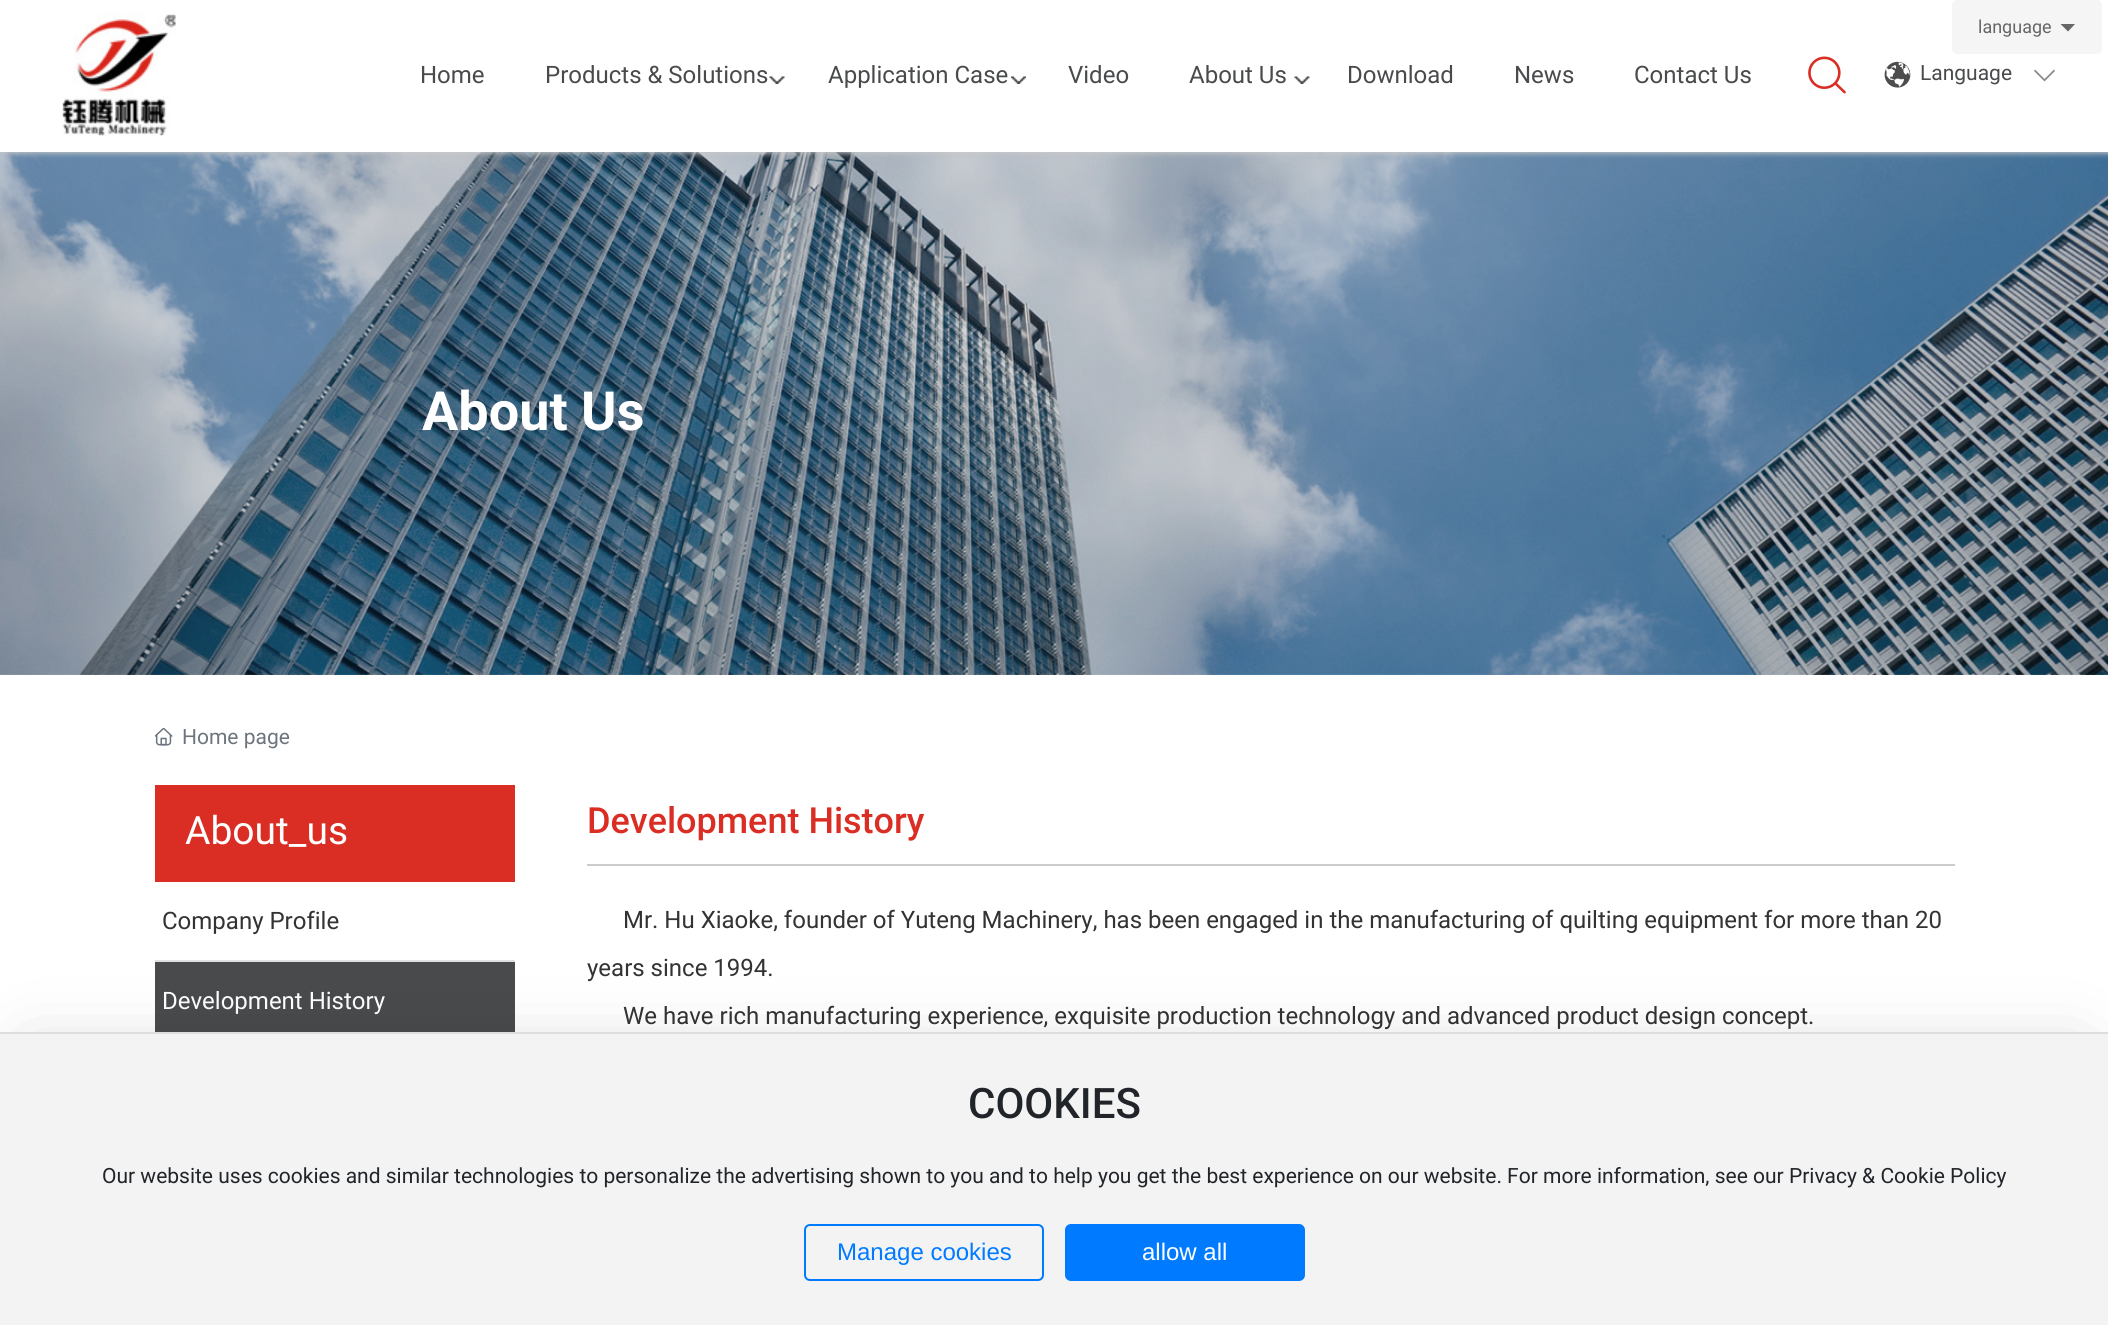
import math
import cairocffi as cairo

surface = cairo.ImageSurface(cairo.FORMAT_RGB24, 2108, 1325)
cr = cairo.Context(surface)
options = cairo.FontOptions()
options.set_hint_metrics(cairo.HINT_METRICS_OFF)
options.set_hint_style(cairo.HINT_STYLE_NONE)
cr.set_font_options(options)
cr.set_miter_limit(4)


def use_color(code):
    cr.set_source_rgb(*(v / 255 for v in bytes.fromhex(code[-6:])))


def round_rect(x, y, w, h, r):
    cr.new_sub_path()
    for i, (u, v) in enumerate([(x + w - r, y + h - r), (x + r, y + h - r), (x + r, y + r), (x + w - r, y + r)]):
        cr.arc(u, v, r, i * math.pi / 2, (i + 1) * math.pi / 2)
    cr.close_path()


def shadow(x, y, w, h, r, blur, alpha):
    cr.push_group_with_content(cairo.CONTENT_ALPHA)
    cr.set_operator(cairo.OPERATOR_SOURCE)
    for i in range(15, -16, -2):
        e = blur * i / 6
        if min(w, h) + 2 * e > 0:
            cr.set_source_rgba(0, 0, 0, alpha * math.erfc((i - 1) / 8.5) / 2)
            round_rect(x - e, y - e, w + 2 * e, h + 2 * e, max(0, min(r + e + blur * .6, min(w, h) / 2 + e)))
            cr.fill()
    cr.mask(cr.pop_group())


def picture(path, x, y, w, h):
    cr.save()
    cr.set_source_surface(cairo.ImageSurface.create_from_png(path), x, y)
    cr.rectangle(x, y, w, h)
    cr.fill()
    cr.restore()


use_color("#ffffff")
cr.paint()
picture("img6.png", 0, 152, 2108, 523)
use_color("#cccccc")
shadow(-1, -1, 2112, 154, 0, 3, 1)
use_color("#ffffff")
cr.rectangle(0, 0, 2108, 152)
cr.fill()
use_color("#f5f5f5")
round_rect(1952, 0, 150, 54, 5)
cr.fill()
cr.select_font_face("Roboto")
cr.set_font_size(18)
use_color("#666666")
cr.move_to(1978, 33)
cr.show_text("language")
cr.new_path()
cr.move_to(2060.5, 24)
cr.line_to(2068, 31.5)
cr.line_to(2075, 24)
cr.close_path()
cr.fill()
picture("img1.png", 62, 12, 114, 124)
cr.set_font_size(24)
use_color("#484a4c")
cr.move_to(420, 83)
cr.show_text("Home")
cr.move_to(545, 83)
cr.show_text("Products & Solutions")
picture("img2.png", 769, 76, 16, 8)
cr.move_to(828, 83)
cr.show_text("Application Case")
picture("img3.png", 1011, 76, 15, 8)
cr.move_to(1068, 83)
cr.show_text("Video")
cr.move_to(1189, 83)
cr.show_text("About Us")
picture("img2.png", 1294, 76, 16, 8)
cr.move_to(1347, 83)
cr.show_text("Download")
cr.move_to(1514, 83)
cr.show_text("News")
cr.move_to(1634, 83)
cr.show_text("Contact Us")
picture("img4.png", 1808, 56, 38, 38)
picture("img5.png", 1884, 61, 27, 27)
cr.set_font_size(21)
cr.move_to(1920, 80)
cr.show_text("Language")
use_color("#8a8a8a")
cr.new_path()
cr.move_to(2035, 69.5)
cr.line_to(2034, 71)
cr.line_to(2044.5, 81.5)
cr.line_to(2055, 71)
cr.line_to(2054, 69.5)
cr.line_to(2044.5, 79)
cr.close_path()
cr.fill()
cr.select_font_face("Roboto", cairo.FONT_SLANT_NORMAL, cairo.FONT_WEIGHT_BOLD)
cr.set_font_size(54)
use_color("#ffffff")
cr.move_to(422, 430)
cr.show_text("About Us")
picture("img7.png", 155, 728, 18, 18)
cr.select_font_face("Roboto")
cr.set_font_size(21)
use_color("#6c757d")
cr.move_to(182, 744)
cr.show_text("Home page")
use_color("#da2e24")
cr.rectangle(155, 785, 360, 97)
cr.fill()
cr.set_font_size(39)
use_color("#ffffff")
cr.move_to(185, 844)
cr.show_text("About_us")
use_color("#dee0e2")
cr.rectangle(155, 960, 360, 2)
cr.fill()
cr.set_font_size(24)
use_color("#333333")
cr.move_to(162, 929)
cr.show_text("Company Profile")
use_color("#484a4c")
cr.rectangle(155, 962, 360, 70)
cr.fill()
use_color("#ffffff")
cr.move_to(162, 1009)
cr.show_text("Development History")
use_color("#cccccc")
cr.rectangle(587, 864, 1368, 2)
cr.fill()
cr.select_font_face("Roboto Medium")
cr.set_font_size(36)
use_color("#da2e24")
cr.move_to(587, 833)
cr.show_text("Development History")
cr.select_font_face("Roboto")
cr.set_font_size(24)
use_color("#333333")
cr.move_to(623, 928)
cr.show_text("Mr. Hu Xiaoke, founder of Yuteng Machinery, has been engaged in the manufacturing of quilting equipment for more than 20")
cr.move_to(587, 976)
cr.show_text("years since 1994.")
cr.move_to(623, 1024)
cr.show_text("We have rich manufacturing experience, exquisite production technology and advanced product design concept.")
use_color("#000000")
shadow(32, 1058, 2046, 231, 0, 37.5, 0.2)
use_color("#f3f3f3")
cr.rectangle(0, 1034, 2108, 291)
cr.fill()
use_color("#dddddd")
cr.rectangle(0, 1032, 2108, 2)
cr.fill()
cr.select_font_face("Roboto Medium")
cr.set_font_size(42)
use_color("#212529")
cr.move_to(968, 1118)
cr.show_text("COOKIES")
cr.select_font_face("Roboto")
cr.set_font_size(21)
cr.move_to(102, 1183)
cr.show_text("Our website uses cookies and similar technologies to personalize the advertising shown to you and to help you get the best experience on our website. For more information, see our Privacy & Cookie Policy")
round_rect(805, 1225, 238, 55, 5)
use_color("#007bff")
cr.stroke()
cr.select_font_face("Liberation Sans")
cr.set_font_size(24)
cr.move_to(837, 1260)
cr.show_text("Manage cookies")
round_rect(1066, 1225, 238, 55, 5)
cr.fill_preserve()
cr.stroke()
use_color("#ffffff")
cr.move_to(1142, 1260)
cr.show_text("allow all")
surface.write_to_png("result.png")
